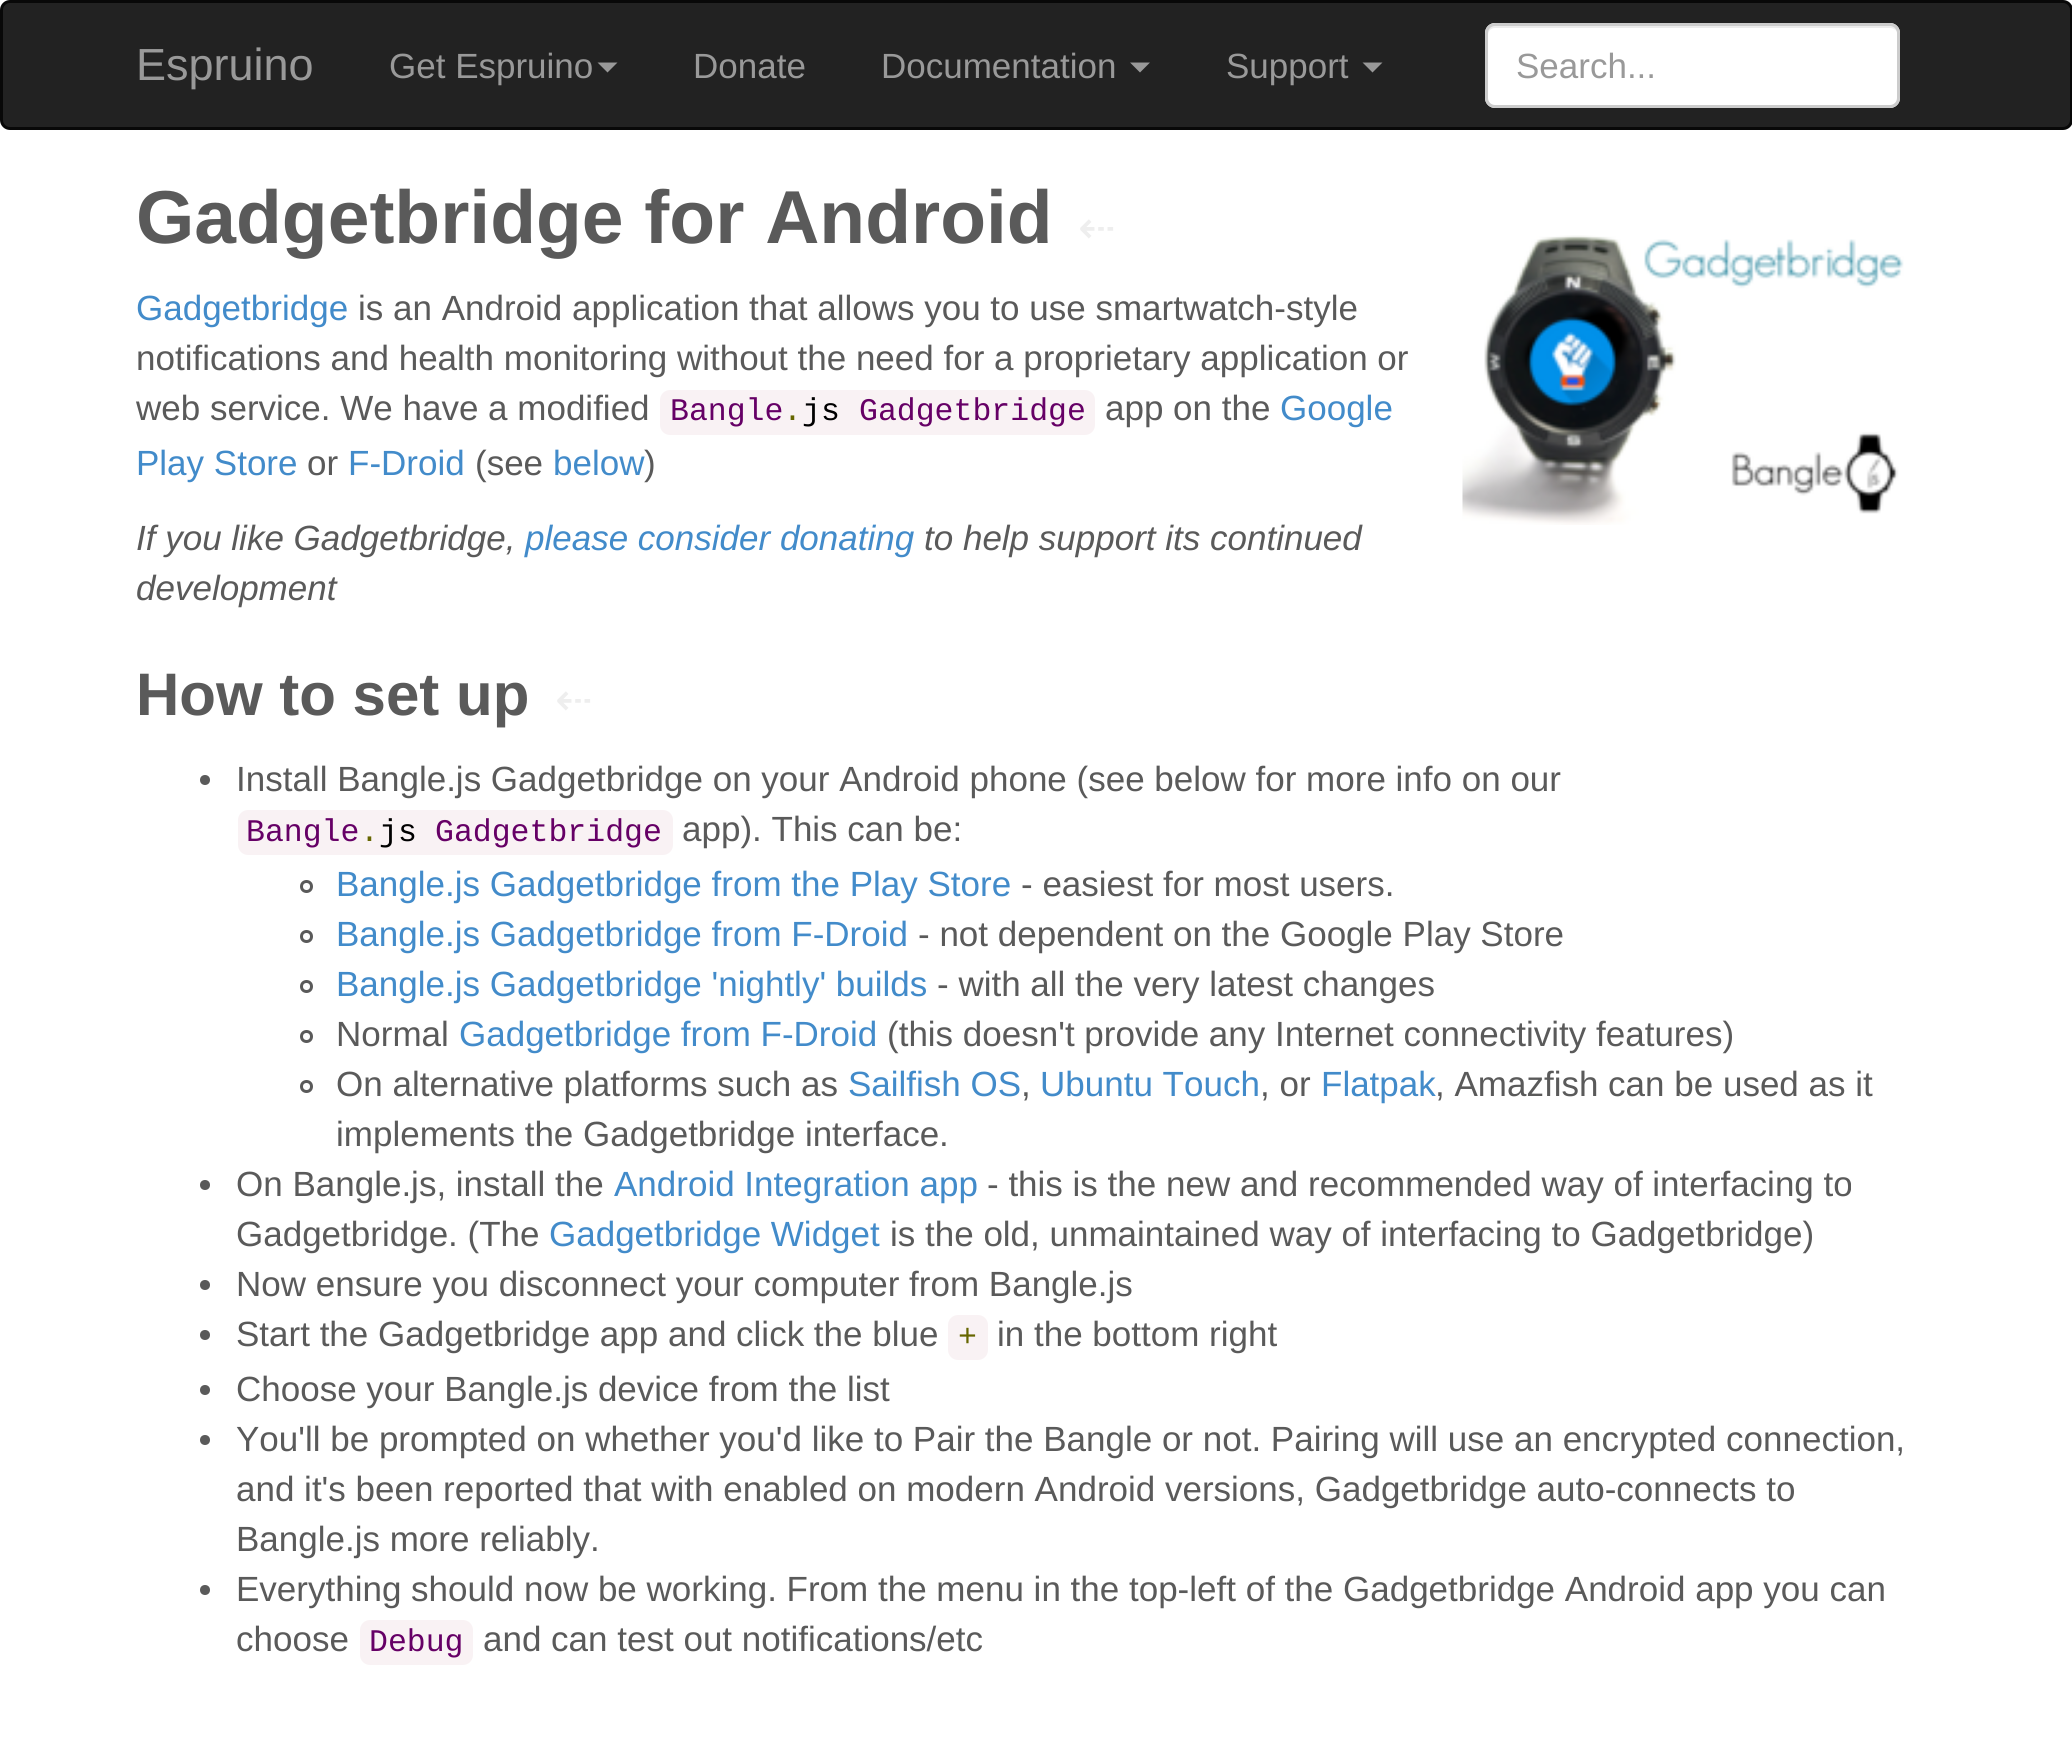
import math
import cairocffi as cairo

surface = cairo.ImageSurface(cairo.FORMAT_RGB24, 2072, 1746)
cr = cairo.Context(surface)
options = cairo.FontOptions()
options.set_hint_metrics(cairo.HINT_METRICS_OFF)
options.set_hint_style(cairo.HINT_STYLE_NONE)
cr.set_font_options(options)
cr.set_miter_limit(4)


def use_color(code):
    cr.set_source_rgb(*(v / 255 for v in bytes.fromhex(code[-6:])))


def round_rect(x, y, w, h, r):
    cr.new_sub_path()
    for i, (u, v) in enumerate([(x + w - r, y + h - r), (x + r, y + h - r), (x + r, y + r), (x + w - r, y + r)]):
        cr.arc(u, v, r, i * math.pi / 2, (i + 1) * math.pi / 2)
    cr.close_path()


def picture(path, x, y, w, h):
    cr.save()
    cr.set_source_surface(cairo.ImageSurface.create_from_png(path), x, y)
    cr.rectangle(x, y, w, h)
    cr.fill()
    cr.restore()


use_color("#ffffff")
cr.paint()
use_color("#222222")
round_rect(1.5, 1.5, 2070, 127, 8.5)
cr.fill_preserve()
use_color("#080808")
cr.set_line_width(3)
cr.stroke()
cr.select_font_face("Liberation Sans")
cr.set_font_size(45)
use_color("#999999")
cr.move_to(136, 80)
cr.show_text("Espruino")
cr.set_font_size(35)
cr.move_to(389, 78)
cr.show_text("Get Espruino")
cr.new_path()
cr.move_to(597.5, 62.5)
cr.line_to(617.5, 62.5)
cr.line_to(607.5, 72.5)
cr.close_path()
cr.fill()
cr.move_to(693, 78)
cr.show_text("Donate")
cr.move_to(881, 78)
cr.show_text("Documentation")
cr.new_path()
cr.move_to(1130, 62.5)
cr.line_to(1150, 62.5)
cr.line_to(1140, 72.5)
cr.close_path()
cr.fill()
cr.move_to(1226, 78)
cr.show_text("Support")
cr.new_path()
cr.move_to(1362.5, 62.5)
cr.line_to(1382.5, 62.5)
cr.line_to(1372.5, 72.5)
cr.close_path()
cr.fill()
use_color("#ffffff")
round_rect(1485, 23, 415, 85, 10)
cr.fill()
use_color("#ececec")
cr.new_path()
cr.move_to(1495, 28)
cr.line_to(1890, 28)
cr.curve_to(1894, 28, 1898, 31, 1898, 35)
cr.line_to(1898, 33)
cr.curve_to(1898, 29, 1894, 25, 1890, 25)
cr.line_to(1496, 25)
cr.curve_to(1492, 25, 1488, 29, 1488, 33)
cr.line_to(1488, 35)
cr.curve_to(1488, 31, 1491, 28, 1495, 28)
cr.close_path()
cr.fill()
round_rect(1486.5, 24.5, 412, 82, 8.5)
use_color("#cccccc")
cr.stroke()
use_color("#999999")
cr.move_to(1516, 78)
cr.show_text("Search...")
cr.select_font_face("Liberation Sans", cairo.FONT_SLANT_NORMAL, cairo.FONT_WEIGHT_BOLD)
cr.set_font_size(75)
use_color("#5a5a5a")
cr.move_to(136, 243)
cr.show_text("Gadgetbridge for Android")
cr.select_font_face("DejaVu Sans")
cr.set_font_size(45)
use_color("#eeeeee")
cr.move_to(1078, 243)
cr.show_text("⇠")
cr.select_font_face("Liberation Sans")
cr.set_font_size(35)
use_color("#428bca")
cr.move_to(136, 320)
cr.show_text("Gadgetbridge")
use_color("#5a5a5a")
cr.move_to(358, 320)
cr.show_text("is an Android application that allows you to use smartwatch-style")
cr.move_to(136, 370)
cr.show_text("notifications and health monitoring without the need for a proprietary application or")
cr.move_to(136, 420)
cr.show_text("web service. We have a modified")
use_color("#f9f2f4")
cr.new_path()
cr.move_to(670, 390)
cr.line_to(783, 390)
cr.line_to(783, 435)
cr.line_to(670, 435)
cr.curve_to(664.5, 435, 660, 430.5, 660, 425)
cr.line_to(660, 400)
cr.curve_to(660, 394.5, 664.5, 390, 670, 390)
cr.close_path()
cr.fill()
cr.select_font_face("Liberation Mono")
cr.set_font_size(31.5)
use_color("#660066")
cr.move_to(670, 420)
cr.show_text("Bangle")
use_color("#f9f2f4")
cr.rectangle(783, 390, 75, 45)
cr.fill()
use_color("#666600")
cr.move_to(783, 420)
cr.show_text(".")
use_color("#000000")
cr.move_to(802, 420)
cr.show_text("js")
use_color("#f9f2f4")
cr.new_path()
cr.move_to(858, 390)
cr.line_to(1085, 390)
cr.curve_to(1090.5, 390, 1095, 394.5, 1095, 400)
cr.line_to(1095, 425)
cr.curve_to(1095, 430.5, 1090.5, 435, 1085, 435)
cr.line_to(858, 435)
cr.close_path()
cr.fill()
use_color("#660066")
cr.move_to(859, 420)
cr.show_text("Gadgetbridge")
cr.select_font_face("Liberation Sans")
cr.set_font_size(35)
use_color("#5a5a5a")
cr.move_to(1105, 420)
cr.show_text("app on the")
use_color("#428bca")
cr.move_to(1280, 420)
cr.show_text("Google")
cr.move_to(136, 475)
cr.show_text("Play Store")
use_color("#5a5a5a")
cr.move_to(307, 475)
cr.show_text("or")
use_color("#428bca")
cr.move_to(348, 475)
cr.show_text("F-Droid")
use_color("#5a5a5a")
cr.move_to(475, 475)
cr.show_text("(see")
use_color("#428bca")
cr.move_to(553, 475)
cr.show_text("below")
use_color("#5a5a5a")
cr.move_to(644, 475)
cr.show_text(")")
picture("img1.png", 1462, 235, 442, 290)
cr.select_font_face("Liberation Sans", cairo.FONT_SLANT_ITALIC)
cr.move_to(136, 550)
cr.show_text("If you like Gadgetbridge,")
use_color("#428bca")
cr.move_to(525, 550)
cr.show_text("please consider donating")
use_color("#5a5a5a")
cr.move_to(924, 550)
cr.show_text("to help support its continued")
cr.move_to(136, 600)
cr.show_text("development")
cr.select_font_face("Liberation Sans", cairo.FONT_SLANT_NORMAL, cairo.FONT_WEIGHT_BOLD)
cr.set_font_size(60)
cr.move_to(136, 715)
cr.show_text("How to set up")
cr.select_font_face("DejaVu Sans")
cr.set_font_size(45)
use_color("#eeeeee")
cr.move_to(555, 715)
cr.show_text("⇠")
use_color("#5a5a5a")
cr.new_path()
cr.arc(205, 780, 5, 0, 2 * math.pi)
cr.fill()
cr.select_font_face("Liberation Sans")
cr.set_font_size(35)
cr.move_to(236, 791)
cr.show_text("Install Bangle.js Gadgetbridge on your Android phone (see below for more info on our")
use_color("#f9f2f4")
cr.new_path()
cr.move_to(248, 810)
cr.line_to(360, 810)
cr.line_to(360, 855)
cr.line_to(248, 855)
cr.curve_to(242.5, 855, 238, 850.5, 238, 845)
cr.line_to(238, 820)
cr.curve_to(238, 814.5, 242.5, 810, 248, 810)
cr.close_path()
cr.fill()
cr.select_font_face("Liberation Mono")
cr.set_font_size(31.5)
use_color("#660066")
cr.move_to(246, 841)
cr.show_text("Bangle")
use_color("#f9f2f4")
cr.rectangle(360, 810, 75, 45)
cr.fill()
use_color("#666600")
cr.move_to(360, 841)
cr.show_text(".")
use_color("#000000")
cr.move_to(379, 841)
cr.show_text("js")
use_color("#f9f2f4")
cr.new_path()
cr.move_to(435, 810)
cr.line_to(663, 810)
cr.curve_to(668.5, 810, 673, 814.5, 673, 820)
cr.line_to(673, 845)
cr.curve_to(673, 850.5, 668.5, 855, 663, 855)
cr.line_to(435, 855)
cr.close_path()
cr.fill()
use_color("#660066")
cr.move_to(435, 841)
cr.show_text("Gadgetbridge")
cr.select_font_face("Liberation Sans")
cr.set_font_size(35)
use_color("#5a5a5a")
cr.move_to(682, 841)
cr.show_text("app). This can be:")
cr.new_path()
cr.arc(306.5, 886.5, 5, 0, 2 * math.pi)
cr.stroke()
use_color("#428bca")
cr.move_to(336, 896)
cr.show_text("Bangle.js Gadgetbridge from the Play Store")
use_color("#5a5a5a")
cr.move_to(1021, 896)
cr.show_text("- easiest for most users.")
cr.new_path()
cr.arc(306.5, 936.5, 5, 0, 2 * math.pi)
cr.stroke()
use_color("#428bca")
cr.move_to(336, 946)
cr.show_text("Bangle.js Gadgetbridge from F-Droid")
use_color("#5a5a5a")
cr.move_to(918, 946)
cr.show_text("- not dependent on the Google Play Store")
cr.new_path()
cr.arc(306.5, 986.5, 5, 0, 2 * math.pi)
cr.stroke()
use_color("#428bca")
cr.move_to(336, 996)
cr.show_text("Bangle.js Gadgetbridge 'nightly' builds")
use_color("#5a5a5a")
cr.move_to(937, 996)
cr.show_text("- with all the very latest changes")
cr.new_path()
cr.arc(306.5, 1036.5, 5, 0, 2 * math.pi)
cr.stroke()
cr.move_to(336, 1046)
cr.show_text("Normal")
use_color("#428bca")
cr.move_to(459, 1046)
cr.show_text("Gadgetbridge from F-Droid")
use_color("#5a5a5a")
cr.move_to(887, 1046)
cr.show_text("(this doesn't provide any Internet connectivity features)")
cr.new_path()
cr.arc(306.5, 1086.5, 5, 0, 2 * math.pi)
cr.stroke()
cr.move_to(336, 1096)
cr.show_text("On alternative platforms such as")
use_color("#428bca")
cr.move_to(848, 1096)
cr.show_text("Sailfish OS")
cr.move_to(1040, 1096)
cr.show_text("Ubuntu Touch")
use_color("#5a5a5a")
cr.move_to(1260, 1096)
cr.show_text(", or")
use_color("#428bca")
cr.move_to(1321, 1096)
cr.show_text("Flatpak")
use_color("#5a5a5a")
cr.move_to(1435, 1096)
cr.show_text(", Amazfish can be used as it")
cr.move_to(1021, 1096)
cr.show_text(",")
cr.move_to(336, 1146)
cr.show_text("implements the Gadgetbridge interface.")
cr.new_path()
cr.arc(205, 1185, 5, 0, 2 * math.pi)
cr.fill()
cr.move_to(236, 1196)
cr.show_text("On Bangle.js, install the")
use_color("#428bca")
cr.move_to(614, 1196)
cr.show_text("Android Integration app")
use_color("#5a5a5a")
cr.move_to(987, 1196)
cr.show_text("- this is the new and recommended way of interfacing to")
cr.move_to(236, 1246)
cr.show_text("Gadgetbridge. (The")
use_color("#428bca")
cr.move_to(549, 1246)
cr.show_text("Gadgetbridge Widget")
use_color("#5a5a5a")
cr.move_to(890, 1246)
cr.show_text("is the old, unmaintained way of interfacing to Gadgetbridge)")
cr.new_path()
cr.arc(205, 1285, 5, 0, 2 * math.pi)
cr.fill()
cr.move_to(236, 1296)
cr.show_text("Now ensure you disconnect your computer from Bangle.js")
cr.new_path()
cr.arc(205, 1335, 5, 0, 2 * math.pi)
cr.fill()
cr.move_to(236, 1346)
cr.show_text("Start the Gadgetbridge app and click the blue")
use_color("#f9f2f4")
round_rect(948, 1315, 40, 45, 10)
cr.fill()
cr.select_font_face("Liberation Mono")
cr.set_font_size(31.5)
use_color("#666600")
cr.move_to(958, 1346)
cr.show_text("+")
cr.select_font_face("Liberation Sans")
cr.set_font_size(35)
use_color("#5a5a5a")
cr.move_to(997, 1346)
cr.show_text("in the bottom right")
cr.new_path()
cr.arc(205, 1390, 5, 0, 2 * math.pi)
cr.fill()
cr.move_to(236, 1401)
cr.show_text("Choose your Bangle.js device from the list")
cr.new_path()
cr.arc(205, 1440, 5, 0, 2 * math.pi)
cr.fill()
cr.move_to(236, 1451)
cr.show_text("You'll be prompted on whether you'd like to Pair the Bangle or not. Pairing will use an encrypted connection,")
cr.move_to(236, 1501)
cr.show_text("and it's been reported that with enabled on modern Android versions, Gadgetbridge auto-connects to")
cr.move_to(236, 1551)
cr.show_text("Bangle.js more reliably.")
cr.new_path()
cr.arc(205, 1590, 5, 0, 2 * math.pi)
cr.fill()
cr.move_to(236, 1601)
cr.show_text("Everything should now be working. From the menu in the top-left of the Gadgetbridge Android app you can")
cr.move_to(236, 1651)
cr.show_text("choose")
use_color("#f9f2f4")
round_rect(360, 1620, 113, 45, 10)
cr.fill()
cr.select_font_face("Liberation Mono")
cr.set_font_size(31.5)
use_color("#660066")
cr.move_to(369, 1651)
cr.show_text("Debug")
cr.select_font_face("Liberation Sans")
cr.set_font_size(35)
use_color("#5a5a5a")
cr.move_to(483, 1651)
cr.show_text("and can test out notifications/etc")
surface.write_to_png("result.png")
